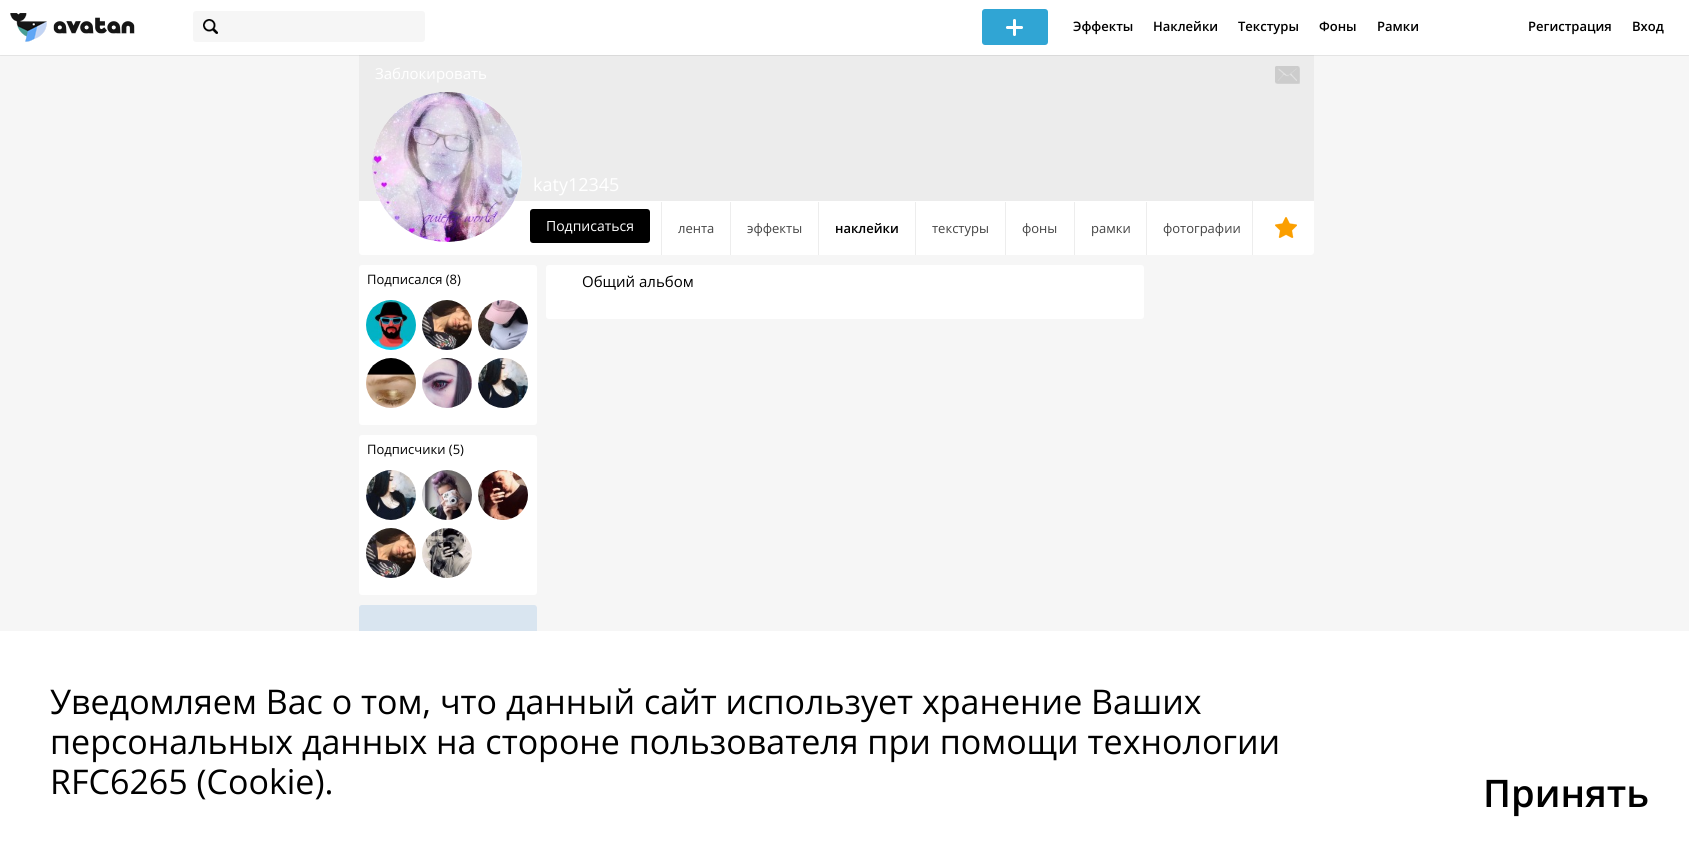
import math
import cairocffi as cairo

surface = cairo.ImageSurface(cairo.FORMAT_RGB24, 1689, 851)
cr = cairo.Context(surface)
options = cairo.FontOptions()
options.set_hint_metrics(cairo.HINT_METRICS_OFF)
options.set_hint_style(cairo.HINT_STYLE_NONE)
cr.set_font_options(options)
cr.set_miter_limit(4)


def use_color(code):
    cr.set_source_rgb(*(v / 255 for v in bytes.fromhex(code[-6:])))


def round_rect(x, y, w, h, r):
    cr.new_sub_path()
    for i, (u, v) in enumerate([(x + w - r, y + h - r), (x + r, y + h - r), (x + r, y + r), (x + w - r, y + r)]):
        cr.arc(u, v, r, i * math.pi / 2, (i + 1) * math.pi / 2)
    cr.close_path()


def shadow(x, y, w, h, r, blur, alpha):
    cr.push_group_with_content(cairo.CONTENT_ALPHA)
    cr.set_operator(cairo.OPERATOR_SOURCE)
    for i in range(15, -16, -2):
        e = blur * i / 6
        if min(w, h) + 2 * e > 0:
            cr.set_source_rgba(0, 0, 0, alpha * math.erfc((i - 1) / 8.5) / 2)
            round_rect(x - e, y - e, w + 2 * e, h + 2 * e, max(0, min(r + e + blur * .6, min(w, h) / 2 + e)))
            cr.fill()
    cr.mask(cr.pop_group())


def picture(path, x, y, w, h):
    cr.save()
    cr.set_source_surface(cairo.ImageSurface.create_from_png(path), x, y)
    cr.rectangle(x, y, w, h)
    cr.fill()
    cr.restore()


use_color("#f6f6f6")
cr.paint()
use_color("#ececec")
cr.rectangle(359, 55, 955, 146)
cr.fill()
use_color("#000000")
shadow(0, 0, 1689, 55, 0, 0.5, 0.3)
use_color("#ffffff")
cr.rectangle(0, 0, 1689, 55)
cr.fill()
picture("img1.png", 10, 13, 125, 29)
use_color("#f6f6f6")
round_rect(193, 11, 232, 31, 3)
cr.fill()
picture("img2.png", 203, 19, 15, 15)
use_color("#30a5d4")
round_rect(982, 9, 66, 36, 3)
cr.fill()
picture("img3.png", 1006, 19, 17, 17)
cr.select_font_face("Open Sans SemiBold")
cr.set_font_size(13)
use_color("#000000")
cr.move_to(1073, 31)
cr.show_text("Эффекты")
cr.move_to(1153, 31)
cr.show_text("Наклейки")
cr.move_to(1238, 31)
cr.show_text("Текстуры")
cr.move_to(1319, 31)
cr.show_text("Фоны")
cr.move_to(1377, 31)
cr.show_text("Рамки")
cr.move_to(1528, 31)
cr.show_text("Регистрация")
cr.move_to(1632, 31)
cr.show_text("Вход")
cr.select_font_face("Open Sans")
cr.set_font_size(15)
use_color("#ffffff")
cr.move_to(375, 79)
cr.show_text("Заблокировать")
picture("img4.png", 1275, 66, 25, 18)
cr.new_path()
cr.move_to(359, 201)
cr.line_to(1314, 201)
cr.line_to(1314, 252)
cr.curve_to(1314, 253.5, 1312.5, 255, 1311, 255)
cr.line_to(362, 255)
cr.curve_to(360.5, 255, 359, 253.5, 359, 252)
cr.close_path()
cr.fill()
cr.arc(447, 167, 75, 0, 2 * math.pi)
cr.fill()
picture("img5.png", 372, 92, 150, 150)
cr.set_font_size(18)
cr.move_to(533, 191)
cr.show_text("katy12345")
use_color("#000000")
round_rect(530, 209, 120, 34, 3)
cr.fill()
cr.set_font_size(14)
use_color("#ffffff")
cr.move_to(546, 231)
cr.show_text("Подписаться")
use_color("#ededed")
cr.rectangle(661, 202, 1, 53)
cr.fill()
cr.set_font_size(13)
use_color("#444444")
cr.move_to(678, 233)
cr.show_text("лента")
use_color("#ededed")
cr.rectangle(730, 202, 1, 53)
cr.fill()
use_color("#444444")
cr.move_to(747, 233)
cr.show_text("эффекты")
use_color("#ededed")
cr.rectangle(818, 202, 1, 53)
cr.fill()
cr.select_font_face("Open Sans SemiBold")
use_color("#000000")
cr.move_to(835, 233)
cr.show_text("наклейки")
use_color("#ededed")
cr.rectangle(915, 202, 1, 53)
cr.fill()
cr.select_font_face("Open Sans")
use_color("#444444")
cr.move_to(932, 233)
cr.show_text("текстуры")
use_color("#ededed")
cr.rectangle(1005, 202, 1, 53)
cr.fill()
use_color("#444444")
cr.move_to(1022, 233)
cr.show_text("фоны")
use_color("#ededed")
cr.rectangle(1074, 202, 1, 53)
cr.fill()
use_color("#444444")
cr.move_to(1091, 233)
cr.show_text("рамки")
use_color("#ededed")
cr.rectangle(1146, 202, 1, 53)
cr.fill()
use_color("#444444")
cr.move_to(1163, 233)
cr.show_text("фотографии")
use_color("#ededed")
cr.rectangle(1252, 201, 1, 54)
cr.fill()
picture("img6.png", 1275, 217, 22, 21)
use_color("#ffffff")
round_rect(359, 265, 178, 160, 3)
cr.fill()
use_color("#000000")
cr.move_to(367, 284)
cr.show_text("Подписался (8)")
picture("img7.png", 366, 300, 50, 50)
picture("img8.png", 422, 300, 50, 50)
picture("img9.png", 478, 300, 50, 50)
picture("img10.png", 366, 358, 50, 50)
picture("img11.png", 422, 358, 50, 50)
picture("img12.png", 478, 358, 50, 50)
use_color("#ffffff")
round_rect(359, 435, 178, 160, 3)
cr.fill()
use_color("#000000")
cr.move_to(367, 454)
cr.show_text("Подписчики (5)")
picture("img13.png", 366, 470, 50, 50)
picture("img14.png", 422, 470, 50, 50)
picture("img15.png", 478, 470, 50, 50)
picture("img8.png", 366, 528, 50, 50)
picture("img16.png", 422, 528, 50, 50)
picture("img17.png", 359, 605, 178, 26)
use_color("#ffffff")
round_rect(546, 265, 598, 54, 3)
cr.fill()
cr.set_font_size(15)
use_color("#000000")
cr.move_to(582, 287)
cr.show_text("Общий альбом")
use_color("#ffffff")
cr.rectangle(0, 631, 1689, 220)
cr.fill()
cr.set_font_size(34)
use_color("#000000")
cr.move_to(50, 714)
cr.show_text("Уведомляем Вас о том, что данный сайт использует хранение Ваших")
cr.move_to(50, 754)
cr.show_text("персональных данных на стороне пользователя при помощи технологии")
cr.move_to(50, 794)
cr.show_text("RFC6265 (Cookie).")
cr.select_font_face("Open Sans SemiBold")
cr.set_font_size(38)
cr.move_to(1483, 807)
cr.show_text("Принять")
surface.write_to_png("result.png")
